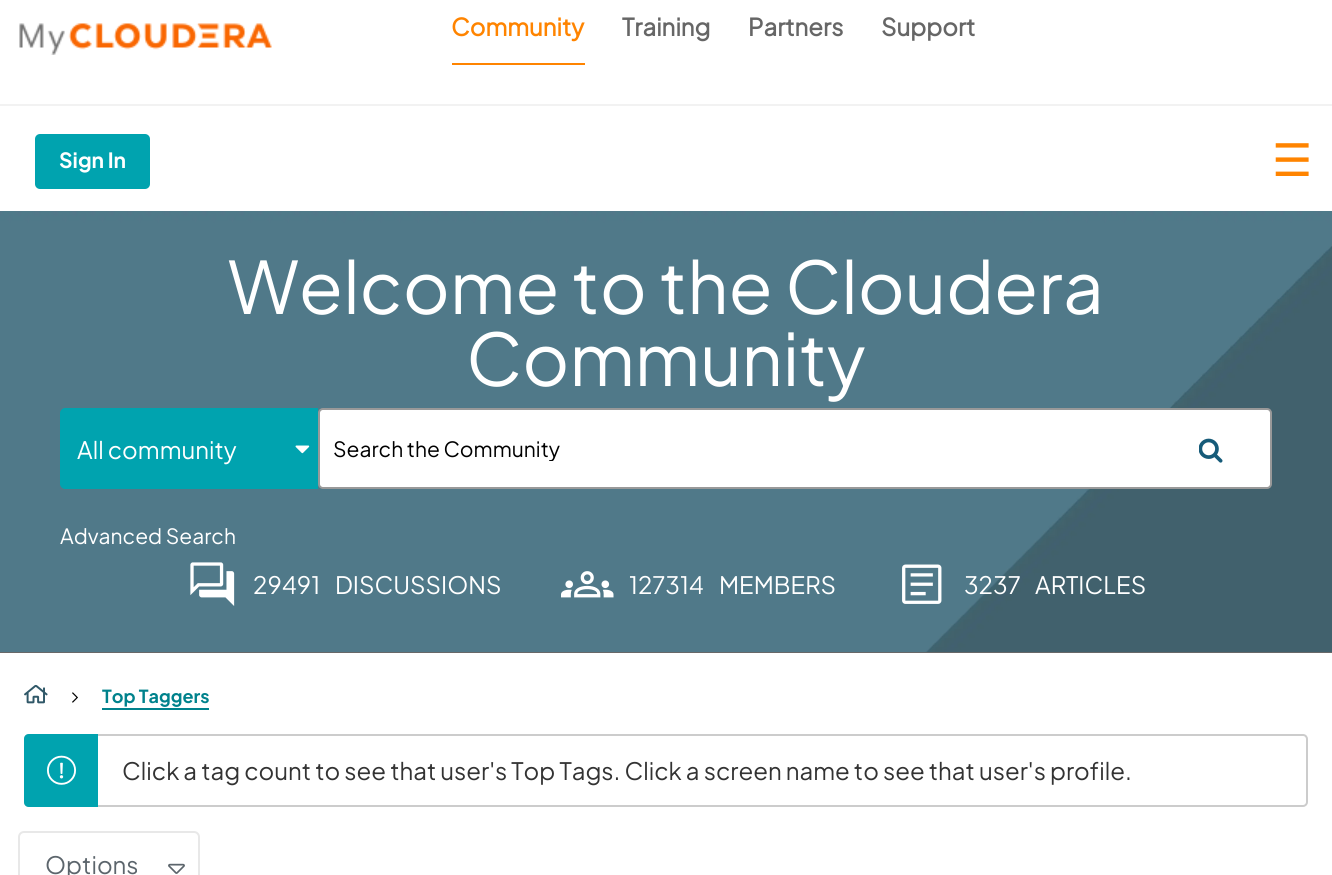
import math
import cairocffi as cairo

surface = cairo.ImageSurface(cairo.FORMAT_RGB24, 1332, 875)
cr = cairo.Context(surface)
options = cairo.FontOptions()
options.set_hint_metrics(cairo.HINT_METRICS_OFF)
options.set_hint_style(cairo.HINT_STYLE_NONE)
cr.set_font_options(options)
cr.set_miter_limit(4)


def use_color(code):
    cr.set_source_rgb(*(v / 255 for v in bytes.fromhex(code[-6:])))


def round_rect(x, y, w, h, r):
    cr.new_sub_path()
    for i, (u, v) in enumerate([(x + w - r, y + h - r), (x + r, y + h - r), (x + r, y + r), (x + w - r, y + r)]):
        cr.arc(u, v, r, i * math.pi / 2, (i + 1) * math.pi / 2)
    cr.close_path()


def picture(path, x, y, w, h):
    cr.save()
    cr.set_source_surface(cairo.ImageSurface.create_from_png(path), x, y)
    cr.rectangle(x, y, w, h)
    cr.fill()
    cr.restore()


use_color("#ffffff")
cr.paint()
use_color("#f2f2f2")
cr.rectangle(0, 104, 1332, 2)
cr.fill()
picture("img1.png", 19, 23, 253, 32)
use_color("#ff8400")
cr.rectangle(452, 63, 133, 2)
cr.fill()
cr.select_font_face("Plus Jakarta Sans", cairo.FONT_SLANT_NORMAL, cairo.FONT_WEIGHT_BOLD)
cr.set_font_size(24)
cr.move_to(451, 36)
cr.show_text("Community")
use_color("#666666")
cr.move_to(622, 36)
cr.show_text("Training")
cr.move_to(748, 36)
cr.show_text("Partners")
cr.move_to(881, 36)
cr.show_text("Support")
use_color("#00a3af")
round_rect(35, 134, 115, 55, 5)
cr.fill()
cr.select_font_face("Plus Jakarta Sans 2", cairo.FONT_SLANT_NORMAL, cairo.FONT_WEIGHT_BOLD)
cr.set_font_size(21)
use_color("#ffffff")
cr.move_to(59, 168)
cr.show_text("Sign In")
cr.select_font_face("DejaVu Sans")
cr.set_font_size(45)
use_color("#ff8400")
cr.move_to(1272, 176)
cr.show_text("☰")
use_color("#686868")
cr.rectangle(0, 652, 1332, 1)
cr.fill()
picture("img2.png", 0, 211, 1332, 441)
cr.select_font_face("Plus Jakarta Sans")
cr.set_font_size(72)
use_color("#ffffff")
cr.move_to(228, 314)
cr.show_text("Welcome to the Cloudera")
cr.move_to(466, 386)
cr.show_text("Community")
use_color("#00a3af")
cr.new_path()
cr.move_to(65, 409)
cr.line_to(317, 409)
cr.line_to(317, 488)
cr.line_to(65, 488)
cr.curve_to(63, 488, 61, 486, 61, 484)
cr.line_to(61, 413)
cr.curve_to(61, 411, 63, 409, 65, 409)
cr.close_path()
cr.fill_preserve()
cr.stroke()
cr.set_font_size(24)
use_color("#ffffff")
cr.move_to(77, 459)
cr.show_text("All community")
picture("img3.png", 295, 445, 15, 9)
round_rect(319, 409, 952, 79, 4)
cr.fill_preserve()
use_color("#999999")
cr.stroke()
cr.save()
cr.rectangle(333, 434, 852, 27)
cr.clip()
cr.set_font_size(21)
use_color("#000000")
cr.move_to(333, 457)
cr.show_text("Search the Community")
cr.restore()
picture("img4.png", 1199, 438, 24, 25)
cr.set_font_size(21)
use_color("#ffffff")
cr.move_to(60, 544)
cr.show_text("Advanced Search")
picture("img5.png", 190, 562, 45, 44)
cr.set_font_size(24)
cr.move_to(253, 594)
cr.show_text("29491")
cr.move_to(335, 594)
cr.show_text("DISCUSSIONS")
picture("img6.png", 561, 571, 53, 27)
cr.move_to(629, 594)
cr.show_text("127314")
cr.move_to(719, 594)
cr.show_text("MEMBERS")
picture("img7.png", 902, 564, 40, 40)
cr.move_to(964, 594)
cr.show_text("3237")
cr.move_to(1035, 594)
cr.show_text("ARTICLES")
picture("img8.png", 24, 684, 24, 20)
picture("img9.png", 72, 692, 6, 11)
cr.select_font_face("Plus Jakarta Sans 2", cairo.FONT_SLANT_NORMAL, cairo.FONT_WEIGHT_BOLD)
cr.set_font_size(18)
use_color("#00828c")
cr.move_to(102, 703)
cr.show_text("Top Taggers")
cr.rectangle(102, 708, 107, 2)
cr.fill()
round_rect(25, 735, 1282, 71, 4)
use_color("#cccccc")
cr.stroke()
use_color("#00a3af")
cr.new_path()
cr.move_to(29, 734)
cr.line_to(98, 734)
cr.line_to(98, 807)
cr.line_to(29, 807)
cr.curve_to(26, 807, 24, 805, 24, 802)
cr.line_to(24, 739)
cr.curve_to(24, 736, 26, 734, 29, 734)
cr.close_path()
cr.fill()
picture("img10.png", 47, 755, 29, 30)
cr.select_font_face("Plus Jakarta Sans")
cr.set_font_size(24)
use_color("#333333")
cr.move_to(122, 780)
cr.show_text("Click a tag count to see that user's Top Tags. Click a screen name to see that user's profile.")
round_rect(19, 832, 180, 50, 5)
use_color("#e8e8e8")
cr.stroke()
use_color("#5c656c")
cr.move_to(45, 874)
cr.show_text("Options")
picture("img11.png", 168, 863, 17, 11)
surface.write_to_png("result.png")
